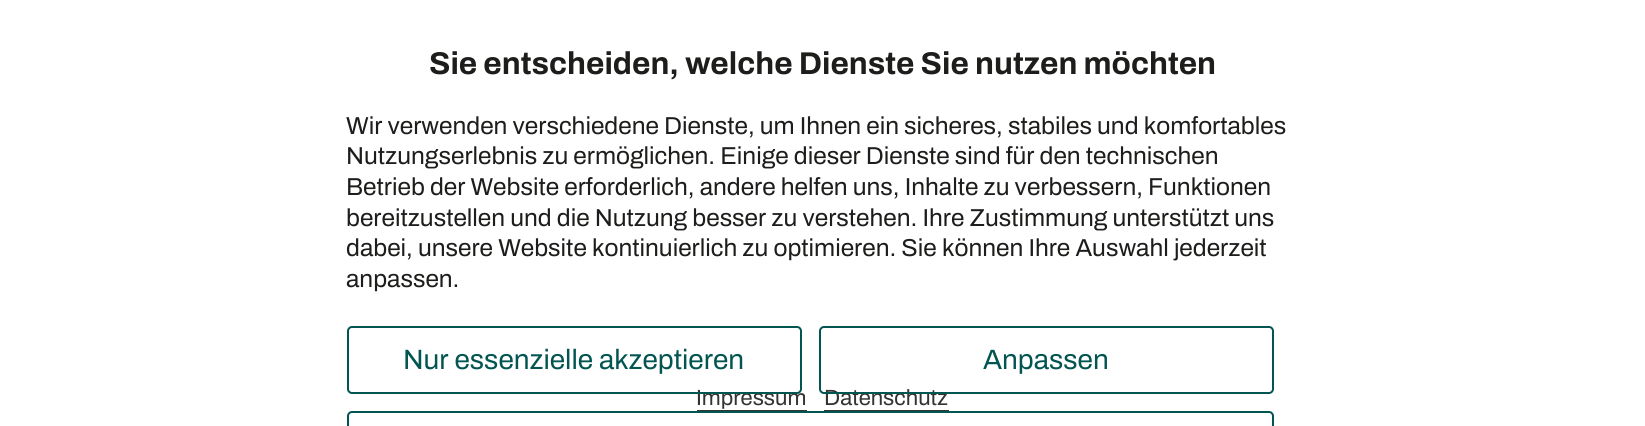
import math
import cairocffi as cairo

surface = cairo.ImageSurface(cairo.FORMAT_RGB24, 1645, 426)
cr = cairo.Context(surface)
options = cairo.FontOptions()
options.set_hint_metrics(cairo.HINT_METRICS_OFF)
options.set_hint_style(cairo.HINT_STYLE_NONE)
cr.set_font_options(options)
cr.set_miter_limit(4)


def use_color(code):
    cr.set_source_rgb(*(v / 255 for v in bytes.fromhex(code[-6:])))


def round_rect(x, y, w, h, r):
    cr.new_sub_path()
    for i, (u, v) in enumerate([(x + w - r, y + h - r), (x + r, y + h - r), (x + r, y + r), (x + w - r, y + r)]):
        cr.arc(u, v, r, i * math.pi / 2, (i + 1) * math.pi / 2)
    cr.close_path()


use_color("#ffffff")
cr.paint()
cr.select_font_face("Archivo", cairo.FONT_SLANT_NORMAL, cairo.FONT_WEIGHT_BOLD)
cr.set_font_size(31.5)
use_color("#1d1d1b")
cr.move_to(429, 74)
cr.show_text("Sie entscheiden, welche Dienste Sie nutzen möchten")
cr.select_font_face("Archivo")
cr.set_font_size(24.5)
cr.move_to(346, 134)
cr.show_text("Wir verwenden verschiedene Dienste, um Ihnen ein sicheres, stabiles und komfortables")
cr.move_to(346, 164)
cr.show_text("Nutzungserlebnis zu ermöglichen. Einige dieser Dienste sind für den technischen")
cr.move_to(346, 195)
cr.show_text("Betrieb der Website erforderlich, andere helfen uns, Inhalte zu verbessern, Funktionen")
cr.move_to(346, 226)
cr.show_text("bereitzustellen und die Nutzung besser zu verstehen. Ihre Zustimmung unterstützt uns")
cr.move_to(346, 256)
cr.show_text("dabei, unsere Website kontinuierlich zu optimieren. Sie können Ihre Auswahl jederzeit")
cr.move_to(346, 287)
cr.show_text("anpassen.")
cr.set_font_size(22)
use_color("#333333")
cr.move_to(696, 405)
cr.show_text("Impressum")
round_rect(348, 327, 453, 66, 4)
use_color("#025550")
cr.stroke()
cr.set_font_size(28)
cr.move_to(403, 369)
cr.show_text("Nur essenzielle akzeptieren")
cr.set_font_size(22)
use_color("#333333")
cr.move_to(824, 405)
cr.show_text("Datenschutz")
round_rect(820, 327, 453, 66, 4)
use_color("#025550")
cr.stroke()
cr.set_font_size(28)
cr.move_to(983, 369)
cr.show_text("Anpassen")
round_rect(348, 412, 925, 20, 4)
cr.stroke()
use_color("#333333")
cr.rectangle(697, 410, 110, 1)
cr.fill()
cr.rectangle(824, 410, 125, 1)
cr.fill()
surface.write_to_png("result.png")
